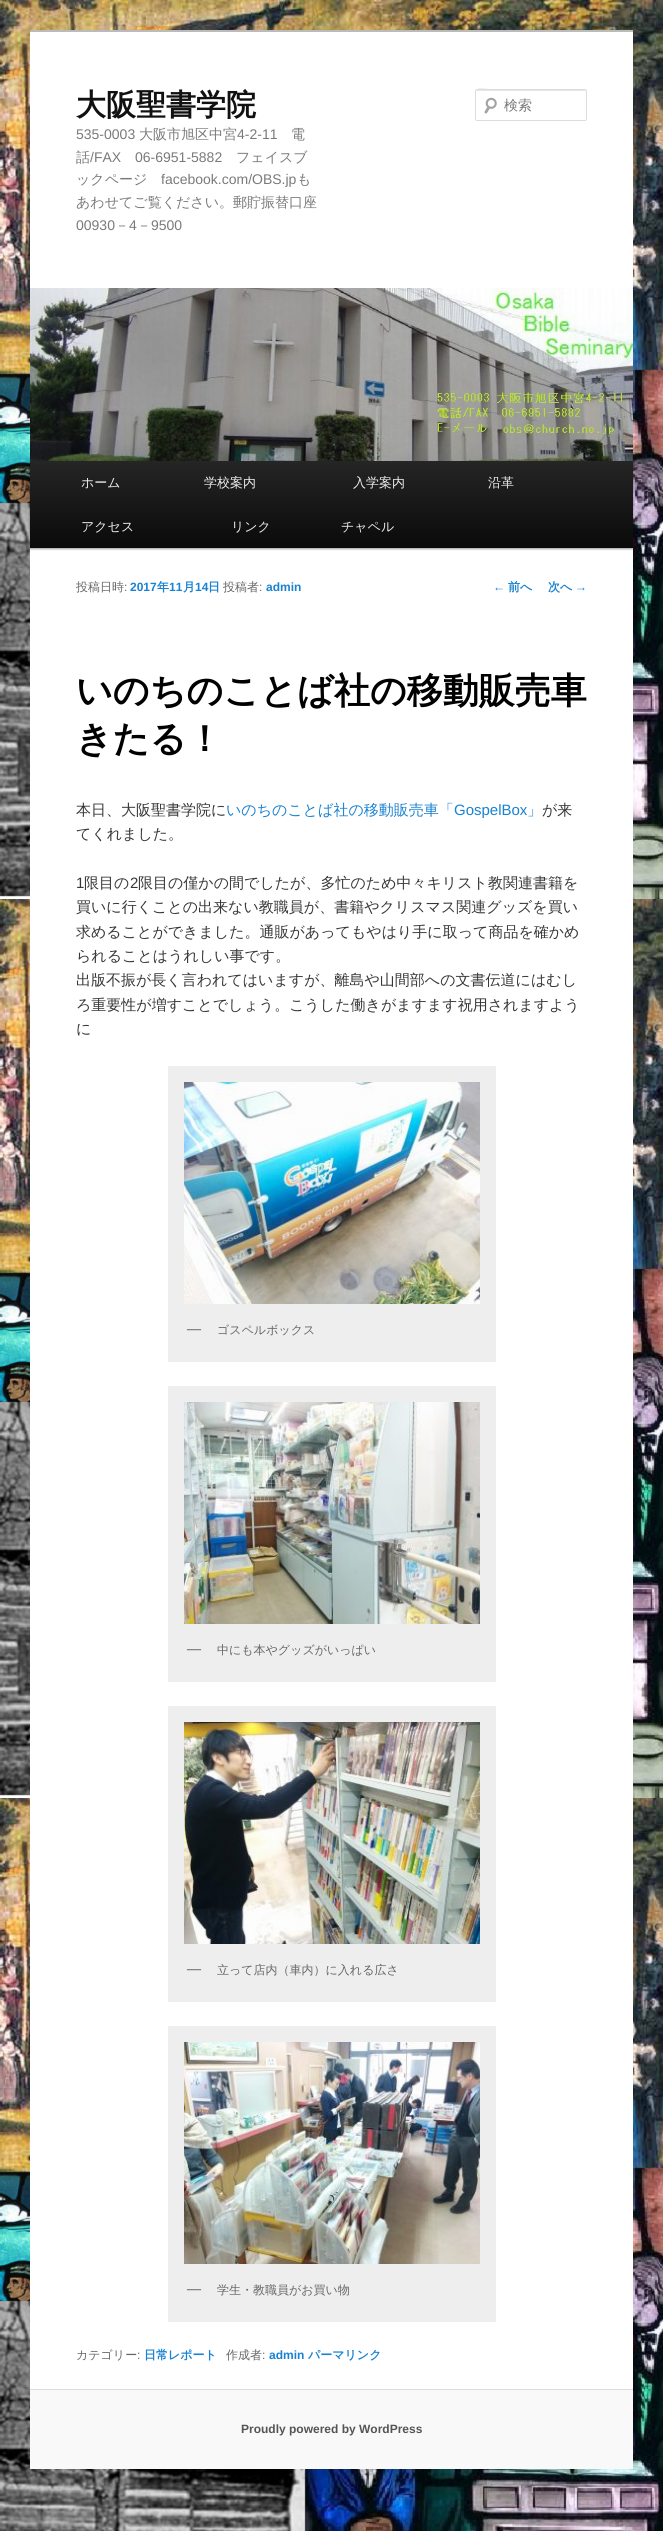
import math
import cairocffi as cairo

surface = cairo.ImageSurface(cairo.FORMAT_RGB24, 663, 2531)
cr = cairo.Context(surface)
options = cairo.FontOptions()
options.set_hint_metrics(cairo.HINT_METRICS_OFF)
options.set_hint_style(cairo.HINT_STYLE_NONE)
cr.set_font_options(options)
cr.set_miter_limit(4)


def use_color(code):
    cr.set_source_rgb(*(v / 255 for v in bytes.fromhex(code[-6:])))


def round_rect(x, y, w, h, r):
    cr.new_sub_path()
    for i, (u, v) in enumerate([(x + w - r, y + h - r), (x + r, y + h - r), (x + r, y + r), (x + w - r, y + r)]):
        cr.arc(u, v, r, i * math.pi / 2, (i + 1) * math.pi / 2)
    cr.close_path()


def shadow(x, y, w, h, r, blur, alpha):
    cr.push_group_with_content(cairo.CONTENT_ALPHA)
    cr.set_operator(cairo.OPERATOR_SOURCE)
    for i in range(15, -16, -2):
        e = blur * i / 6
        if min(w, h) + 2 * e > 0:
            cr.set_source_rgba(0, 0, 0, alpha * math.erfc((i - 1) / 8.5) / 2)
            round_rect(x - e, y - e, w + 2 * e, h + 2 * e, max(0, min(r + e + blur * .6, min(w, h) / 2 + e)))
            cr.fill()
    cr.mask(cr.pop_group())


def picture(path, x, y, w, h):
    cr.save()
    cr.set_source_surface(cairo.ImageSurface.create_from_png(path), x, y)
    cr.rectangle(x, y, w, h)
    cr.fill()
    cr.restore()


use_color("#ffffff")
cr.paint()
picture("img1.png", 0, 0, 663, 2531)
use_color("#ffffff")
cr.rectangle(30, 32, 603, 2357)
cr.fill()
use_color("#bbbbbb")
cr.rectangle(30, 30, 603, 2)
cr.fill()
cr.select_font_face("WenQuanYi Zen Hei", cairo.FONT_SLANT_NORMAL, cairo.FONT_WEIGHT_BOLD)
cr.set_font_size(30)
use_color("#111111")
cr.move_to(76, 115)
cr.show_text("大阪聖書学院")
cr.select_font_face("Liberation Sans")
cr.set_font_size(14)
use_color("#7a7a7a")
cr.move_to(76, 139)
cr.show_text("535-0003")
cr.select_font_face("WenQuanYi Zen Hei Medium")
cr.move_to(139, 139)
cr.show_text("大阪市旭区中宮")
cr.select_font_face("Liberation Sans")
cr.move_to(237, 139)
cr.show_text("4-2-11")
cr.select_font_face("WenQuanYi Zen Hei Medium")
cr.move_to(291, 139)
cr.show_text("電")
cr.move_to(76, 162)
cr.show_text("話")
cr.select_font_face("Liberation Sans")
cr.move_to(90, 162)
cr.show_text("/FAX")
cr.move_to(135, 162)
cr.show_text("06-6951-5882")
cr.select_font_face("WenQuanYi Zen Hei Medium")
cr.move_to(236, 162)
cr.show_text("フェイスブ")
cr.move_to(76, 184)
cr.show_text("ックページ")
cr.select_font_face("Liberation Sans")
cr.move_to(161, 184)
cr.show_text("facebook.com/OBS.jp")
cr.select_font_face("WenQuanYi Zen Hei Medium")
cr.move_to(297, 184)
cr.show_text("も")
cr.move_to(76, 207)
cr.show_text("あわせてご覧ください。郵貯振替口座")
cr.select_font_face("Liberation Sans")
cr.move_to(76, 230)
cr.show_text("00930")
cr.select_font_face("WenQuanYi Zen Hei Medium")
cr.move_to(115, 230)
cr.show_text("－")
cr.select_font_face("Liberation Sans")
cr.move_to(129, 230)
cr.show_text("4")
cr.select_font_face("WenQuanYi Zen Hei Medium")
cr.move_to(137, 230)
cr.show_text("－")
cr.select_font_face("Liberation Sans")
cr.move_to(151, 230)
cr.show_text("9500")
picture("img2.png", 484, 97, 13, 17)
use_color("#e6e6e6")
cr.new_path()
cr.move_to(477, 91)
cr.line_to(586, 91)
cr.line_to(586, 92)
cr.line_to(585, 90)
cr.line_to(495, 90)
cr.curve_to(491, 90, 476, 85, 476, 92)
cr.curve_to(476, 91, 476, 91, 477, 91)
cr.close_path()
cr.fill()
round_rect(475.5, 89.5, 111, 31, 1.5)
use_color("#dddddd")
cr.set_line_width(1)
cr.stroke()
cr.select_font_face("WenQuanYi Zen Hei Medium")
use_color("#7a7a7a")
cr.move_to(504, 110)
cr.show_text("検索")
use_color("#000000")
shadow(30, 462, 603, 87, 0, 1, 0.4)
picture("img3.png", 30, 288, 603, 173)
gradient = cairo.LinearGradient(332, 461, 332, 548)
gradient.add_color_stop_rgba(0, 0.145, 0.145, 0.145, 1)
gradient.add_color_stop_rgba(1, 0.039, 0.039, 0.039, 1)
cr.set_source(gradient)
cr.rectangle(30, 461, 603, 87)
cr.fill()
cr.set_font_size(13)
use_color("#eeeeee")
cr.move_to(81, 487)
cr.show_text("ホーム")
cr.move_to(204, 487)
cr.show_text("学校案内")
cr.move_to(353, 487)
cr.show_text("入学案内")
cr.move_to(488, 487)
cr.show_text("沿革")
cr.move_to(81, 531)
cr.show_text("アクセス")
cr.move_to(231, 531)
cr.show_text("リンク")
cr.move_to(341, 531)
cr.show_text("チャペル")
cr.set_font_size(12)
use_color("#666666")
cr.move_to(76, 591)
cr.show_text("投稿日時")
cr.select_font_face("Liberation Sans")
cr.move_to(124, 591)
cr.show_text(":")
cr.select_font_face("Liberation Sans", cairo.FONT_SLANT_NORMAL, cairo.FONT_WEIGHT_BOLD)
use_color("#1982d1")
cr.move_to(130, 591)
cr.show_text("2017")
cr.select_font_face("WenQuanYi Zen Hei", cairo.FONT_SLANT_NORMAL, cairo.FONT_WEIGHT_BOLD)
cr.move_to(157, 591)
cr.show_text("年")
cr.select_font_face("Liberation Sans", cairo.FONT_SLANT_NORMAL, cairo.FONT_WEIGHT_BOLD)
cr.move_to(169, 591)
cr.show_text("11")
cr.select_font_face("WenQuanYi Zen Hei", cairo.FONT_SLANT_NORMAL, cairo.FONT_WEIGHT_BOLD)
cr.move_to(183, 591)
cr.show_text("月")
cr.select_font_face("Liberation Sans", cairo.FONT_SLANT_NORMAL, cairo.FONT_WEIGHT_BOLD)
cr.move_to(195, 591)
cr.show_text("14")
cr.select_font_face("WenQuanYi Zen Hei", cairo.FONT_SLANT_NORMAL, cairo.FONT_WEIGHT_BOLD)
cr.move_to(208, 591)
cr.show_text("日")
cr.select_font_face("WenQuanYi Zen Hei Medium")
use_color("#666666")
cr.move_to(223, 591)
cr.show_text("投稿者")
cr.select_font_face("Liberation Sans")
cr.move_to(259, 591)
cr.show_text(":")
cr.select_font_face("Liberation Sans", cairo.FONT_SLANT_NORMAL, cairo.FONT_WEIGHT_BOLD)
use_color("#1982d1")
cr.move_to(266, 591)
cr.show_text("admin")
cr.select_font_face("WenQuanYi Zen Hei", cairo.FONT_SLANT_NORMAL, cairo.FONT_WEIGHT_BOLD)
cr.set_font_size(36)
use_color("#000000")
cr.move_to(76, 703)
cr.show_text("いのちのことば社の移動販売車")
cr.move_to(76, 751)
cr.show_text("きたる！")
cr.select_font_face("WenQuanYi Zen Hei Medium")
cr.set_font_size(15)
use_color("#373737")
cr.move_to(76, 815)
cr.show_text("本日、大阪聖書学院に")
use_color("#1982d1")
cr.move_to(226, 815)
cr.show_text("いのちのことば社の移動販売車「")
cr.select_font_face("Liberation Sans")
cr.move_to(454, 815)
cr.show_text("GospelBox")
cr.select_font_face("WenQuanYi Zen Hei Medium")
cr.move_to(527, 815)
cr.show_text("」")
use_color("#373737")
cr.move_to(542, 815)
cr.show_text("が来")
cr.move_to(76, 839)
cr.show_text("てくれました。")
cr.select_font_face("Liberation Sans")
cr.move_to(76, 888)
cr.show_text("1")
cr.select_font_face("WenQuanYi Zen Hei Medium")
cr.move_to(84, 888)
cr.show_text("限目の")
cr.select_font_face("Liberation Sans")
cr.move_to(130, 888)
cr.show_text("2")
cr.select_font_face("WenQuanYi Zen Hei Medium")
cr.move_to(138, 888)
cr.show_text("限目の僅かの間でしたが、多忙のため中々キリスト教関連書籍を")
cr.move_to(76, 912)
cr.show_text("買いに行くことの出来ない教職員が、書籍やクリスマス関連グッズを買い")
cr.move_to(76, 937)
cr.show_text("求めることができました。通販があってもやはり手に取って商品を確かめ")
cr.move_to(76, 961)
cr.show_text("られることはうれしい事です。")
cr.move_to(76, 985)
cr.show_text("出版不振が長く言われてはいますが、離島や山間部への文書伝道にはむし")
cr.move_to(76, 1010)
cr.show_text("ろ重要性が増すことでしょう。こうした働きがますます祝用されますよう")
cr.move_to(76, 1034)
cr.show_text("に")
use_color("#eeeeee")
cr.rectangle(168, 1066, 328, 296)
cr.fill()
picture("img4.png", 184, 1082, 296, 222)
cr.select_font_face("Liberation Serif", cairo.FONT_SLANT_NORMAL, cairo.FONT_WEIGHT_BOLD)
cr.set_font_size(14)
use_color("#666666")
cr.move_to(187, 1333)
cr.show_text("—")
cr.select_font_face("WenQuanYi Zen Hei Medium")
cr.set_font_size(12)
cr.move_to(217, 1334)
cr.show_text("ゴスペルボックス")
use_color("#eeeeee")
cr.rectangle(168, 1386, 328, 296)
cr.fill()
picture("img5.png", 184, 1402, 296, 222)
cr.select_font_face("Liberation Serif", cairo.FONT_SLANT_NORMAL, cairo.FONT_WEIGHT_BOLD)
cr.set_font_size(14)
use_color("#666666")
cr.move_to(187, 1653)
cr.show_text("—")
cr.select_font_face("WenQuanYi Zen Hei Medium")
cr.set_font_size(12)
cr.move_to(217, 1654)
cr.show_text("中にも本やグッズがいっぱい")
use_color("#eeeeee")
cr.rectangle(168, 1706, 328, 296)
cr.fill()
picture("img6.png", 184, 1722, 296, 222)
cr.select_font_face("Liberation Serif", cairo.FONT_SLANT_NORMAL, cairo.FONT_WEIGHT_BOLD)
cr.set_font_size(14)
use_color("#666666")
cr.move_to(187, 1973)
cr.show_text("—")
cr.select_font_face("WenQuanYi Zen Hei Medium")
cr.set_font_size(12)
cr.move_to(217, 1974)
cr.show_text("立って店内（車内）に入れる広さ")
use_color("#eeeeee")
cr.rectangle(168, 2026, 328, 296)
cr.fill()
picture("img7.png", 184, 2042, 296, 222)
cr.select_font_face("Liberation Serif", cairo.FONT_SLANT_NORMAL, cairo.FONT_WEIGHT_BOLD)
cr.set_font_size(14)
use_color("#666666")
cr.move_to(187, 2293)
cr.show_text("—")
cr.select_font_face("WenQuanYi Zen Hei Medium")
cr.set_font_size(12)
cr.move_to(217, 2294)
cr.show_text("学生・教職員がお買い物")
cr.move_to(76, 2359)
cr.show_text("カテゴリー")
cr.select_font_face("Liberation Sans")
cr.move_to(137, 2359)
cr.show_text(":")
cr.select_font_face("WenQuanYi Zen Hei", cairo.FONT_SLANT_NORMAL, cairo.FONT_WEIGHT_BOLD)
use_color("#1982d1")
cr.move_to(144, 2359)
cr.show_text("日常レポート")
cr.select_font_face("WenQuanYi Zen Hei Medium")
use_color("#666666")
cr.move_to(226, 2359)
cr.show_text("作成者")
cr.select_font_face("Liberation Sans")
cr.move_to(262, 2359)
cr.show_text(":")
cr.select_font_face("Liberation Sans", cairo.FONT_SLANT_NORMAL, cairo.FONT_WEIGHT_BOLD)
use_color("#1982d1")
cr.move_to(269, 2359)
cr.show_text("admin")
cr.select_font_face("WenQuanYi Zen Hei", cairo.FONT_SLANT_NORMAL, cairo.FONT_WEIGHT_BOLD)
cr.move_to(308, 2359)
cr.show_text("パーマリンク")
cr.select_font_face("Liberation Sans")
cr.move_to(493, 591)
cr.show_text("←")
cr.select_font_face("WenQuanYi Zen Hei", cairo.FONT_SLANT_NORMAL, cairo.FONT_WEIGHT_BOLD)
cr.move_to(508, 591)
cr.show_text("前へ")
cr.move_to(548, 591)
cr.show_text("次へ")
cr.select_font_face("Liberation Sans")
cr.move_to(575, 591)
cr.show_text("→")
use_color("#f9f9f9")
cr.rectangle(30, 2390, 603, 79)
cr.fill()
use_color("#dddddd")
cr.rectangle(30, 2389, 603, 1)
cr.fill()
cr.select_font_face("Liberation Sans", cairo.FONT_SLANT_NORMAL, cairo.FONT_WEIGHT_BOLD)
use_color("#555555")
cr.move_to(241, 2433)
cr.show_text("Proudly powered by WordPress")
surface.write_to_png("result.png")
